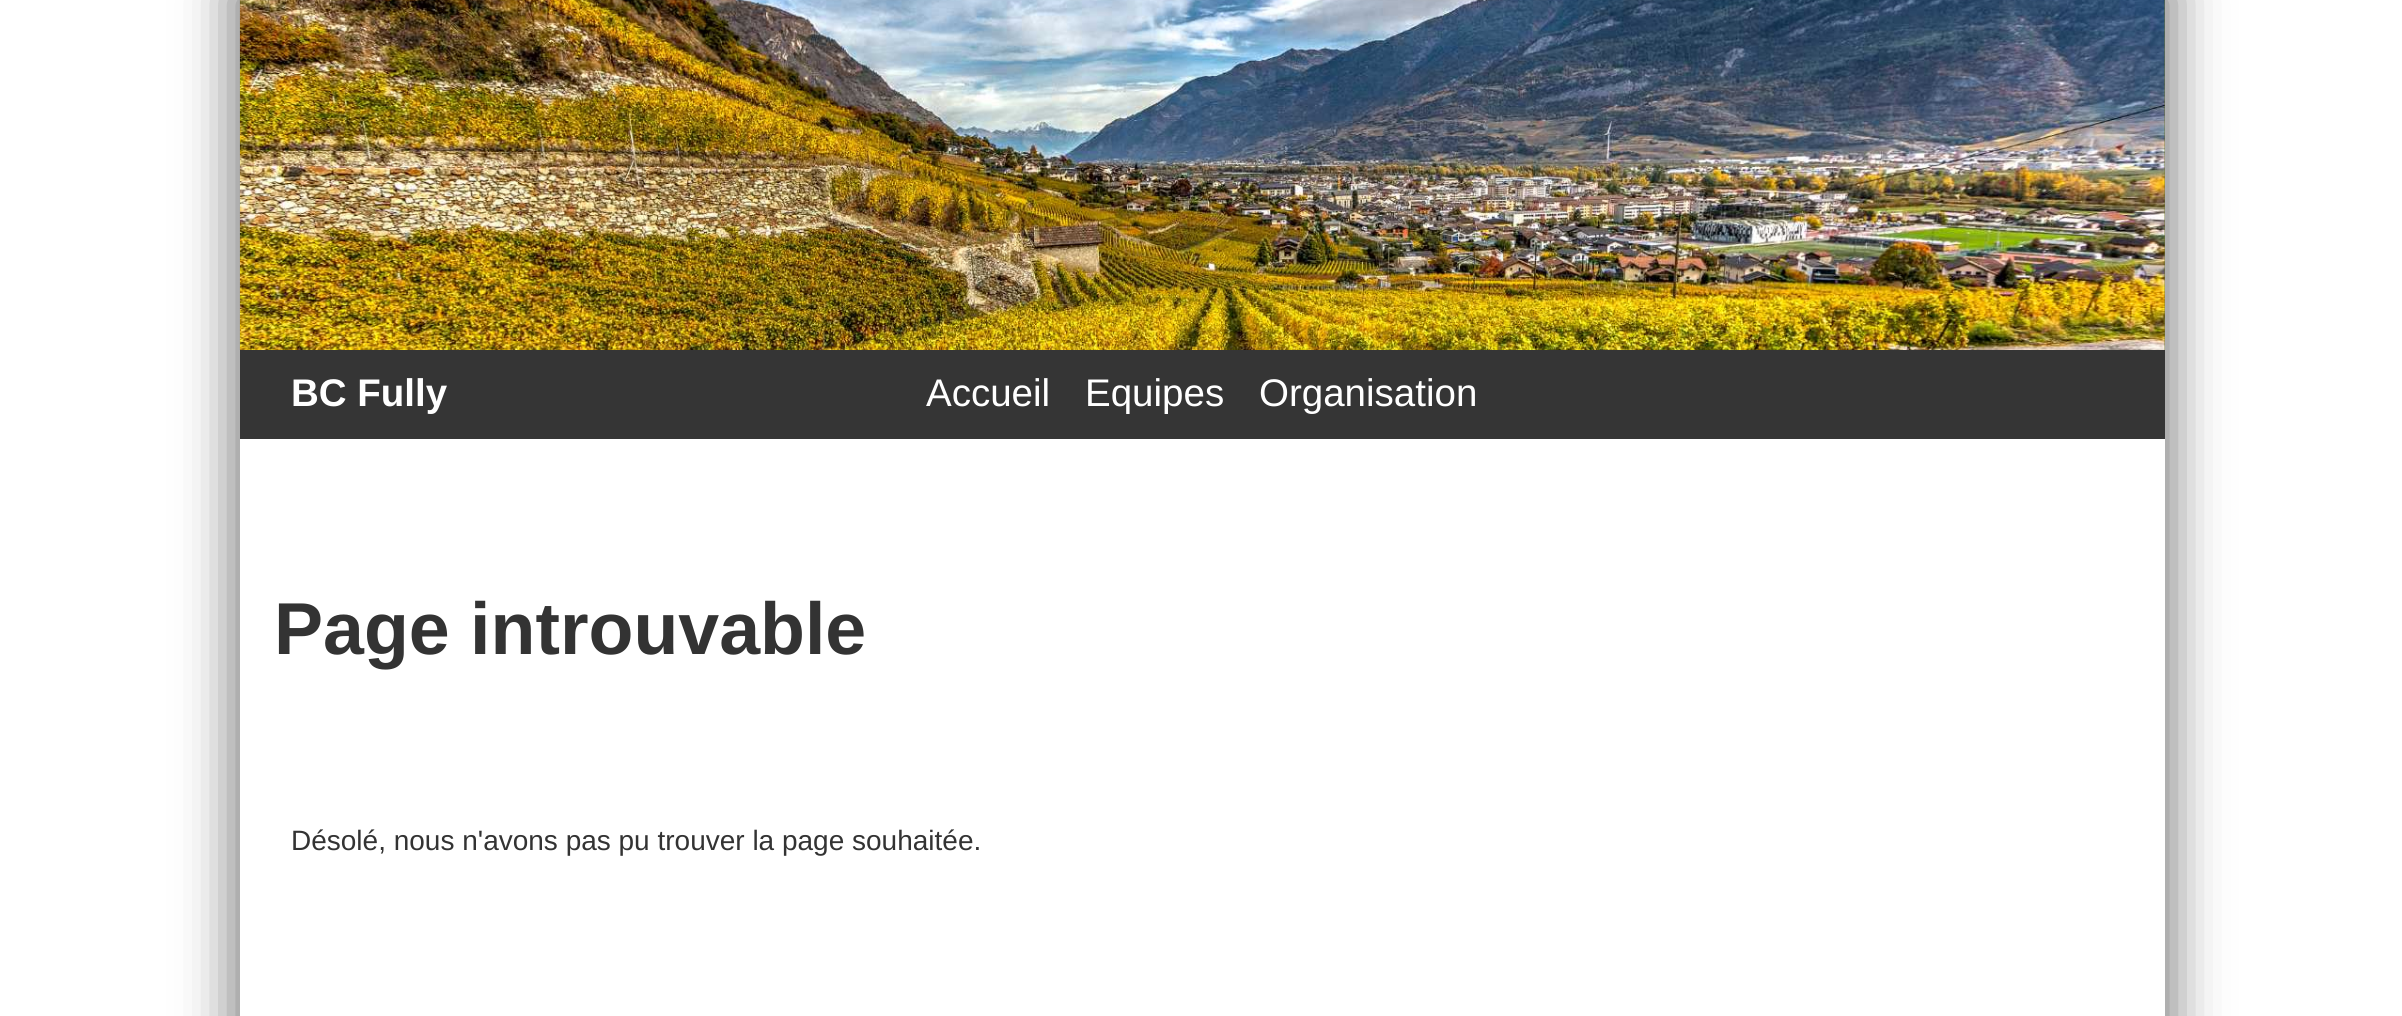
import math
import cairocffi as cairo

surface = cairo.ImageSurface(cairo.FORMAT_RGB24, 2402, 1016)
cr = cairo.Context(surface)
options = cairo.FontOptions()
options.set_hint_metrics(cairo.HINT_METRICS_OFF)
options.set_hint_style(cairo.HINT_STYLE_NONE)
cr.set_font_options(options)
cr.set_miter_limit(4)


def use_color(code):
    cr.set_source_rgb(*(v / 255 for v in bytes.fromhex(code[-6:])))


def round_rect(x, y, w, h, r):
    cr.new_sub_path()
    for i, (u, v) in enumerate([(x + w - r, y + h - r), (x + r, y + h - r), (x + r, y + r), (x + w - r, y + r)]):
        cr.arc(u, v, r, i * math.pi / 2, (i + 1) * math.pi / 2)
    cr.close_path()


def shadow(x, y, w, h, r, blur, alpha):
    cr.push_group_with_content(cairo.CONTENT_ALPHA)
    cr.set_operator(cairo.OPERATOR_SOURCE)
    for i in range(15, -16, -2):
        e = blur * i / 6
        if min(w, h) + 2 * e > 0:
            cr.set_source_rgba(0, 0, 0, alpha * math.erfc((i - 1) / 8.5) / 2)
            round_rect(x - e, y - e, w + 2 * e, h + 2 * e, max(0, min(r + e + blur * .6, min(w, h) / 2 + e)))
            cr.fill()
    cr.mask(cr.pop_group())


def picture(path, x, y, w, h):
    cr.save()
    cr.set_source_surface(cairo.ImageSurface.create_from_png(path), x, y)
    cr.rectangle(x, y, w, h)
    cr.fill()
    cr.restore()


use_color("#ffffff")
cr.paint()
use_color("#707a35")
cr.rectangle(2164, 0, 1, 350)
cr.fill()
picture("img1.png", 239, 0, 1926, 350)
cr.save()
cr.set_fill_rule(cairo.FILL_RULE_EVEN_ODD)
cr.new_path()
cr.move_to(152, 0)
cr.line_to(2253, 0)
cr.line_to(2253, 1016)
cr.line_to(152, 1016)
cr.close_path()
cr.move_to(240, 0)
cr.line_to(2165, 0)
cr.line_to(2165, 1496)
cr.line_to(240, 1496)
cr.close_path()
cr.clip()
use_color("#000000")
shadow(231, -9, 1943, 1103, 0, 26, 0.5)
cr.restore()
use_color("#353535")
cr.rectangle(240, 350, 1925, 89)
cr.fill()
cr.select_font_face("Liberation Sans", cairo.FONT_SLANT_NORMAL, cairo.FONT_WEIGHT_BOLD)
cr.set_font_size(38.5)
use_color("#ffffff")
cr.move_to(291, 406)
cr.show_text("BC Fully")
cr.select_font_face("Liberation Sans")
cr.move_to(926, 406)
cr.show_text("Accueil")
cr.move_to(1085, 406)
cr.show_text("Equipes")
cr.move_to(1259, 406)
cr.show_text("Organisation")
cr.select_font_face("Liberation Sans", cairo.FONT_SLANT_NORMAL, cairo.FONT_WEIGHT_BOLD)
cr.set_font_size(73.5)
use_color("#333333")
cr.move_to(274, 654)
cr.show_text("Page introuvable")
cr.select_font_face("Liberation Sans")
cr.set_font_size(28)
cr.move_to(291, 850)
cr.show_text("Désolé, nous n'avons pas pu trouver la page souhaitée.")
surface.write_to_png("result.png")
